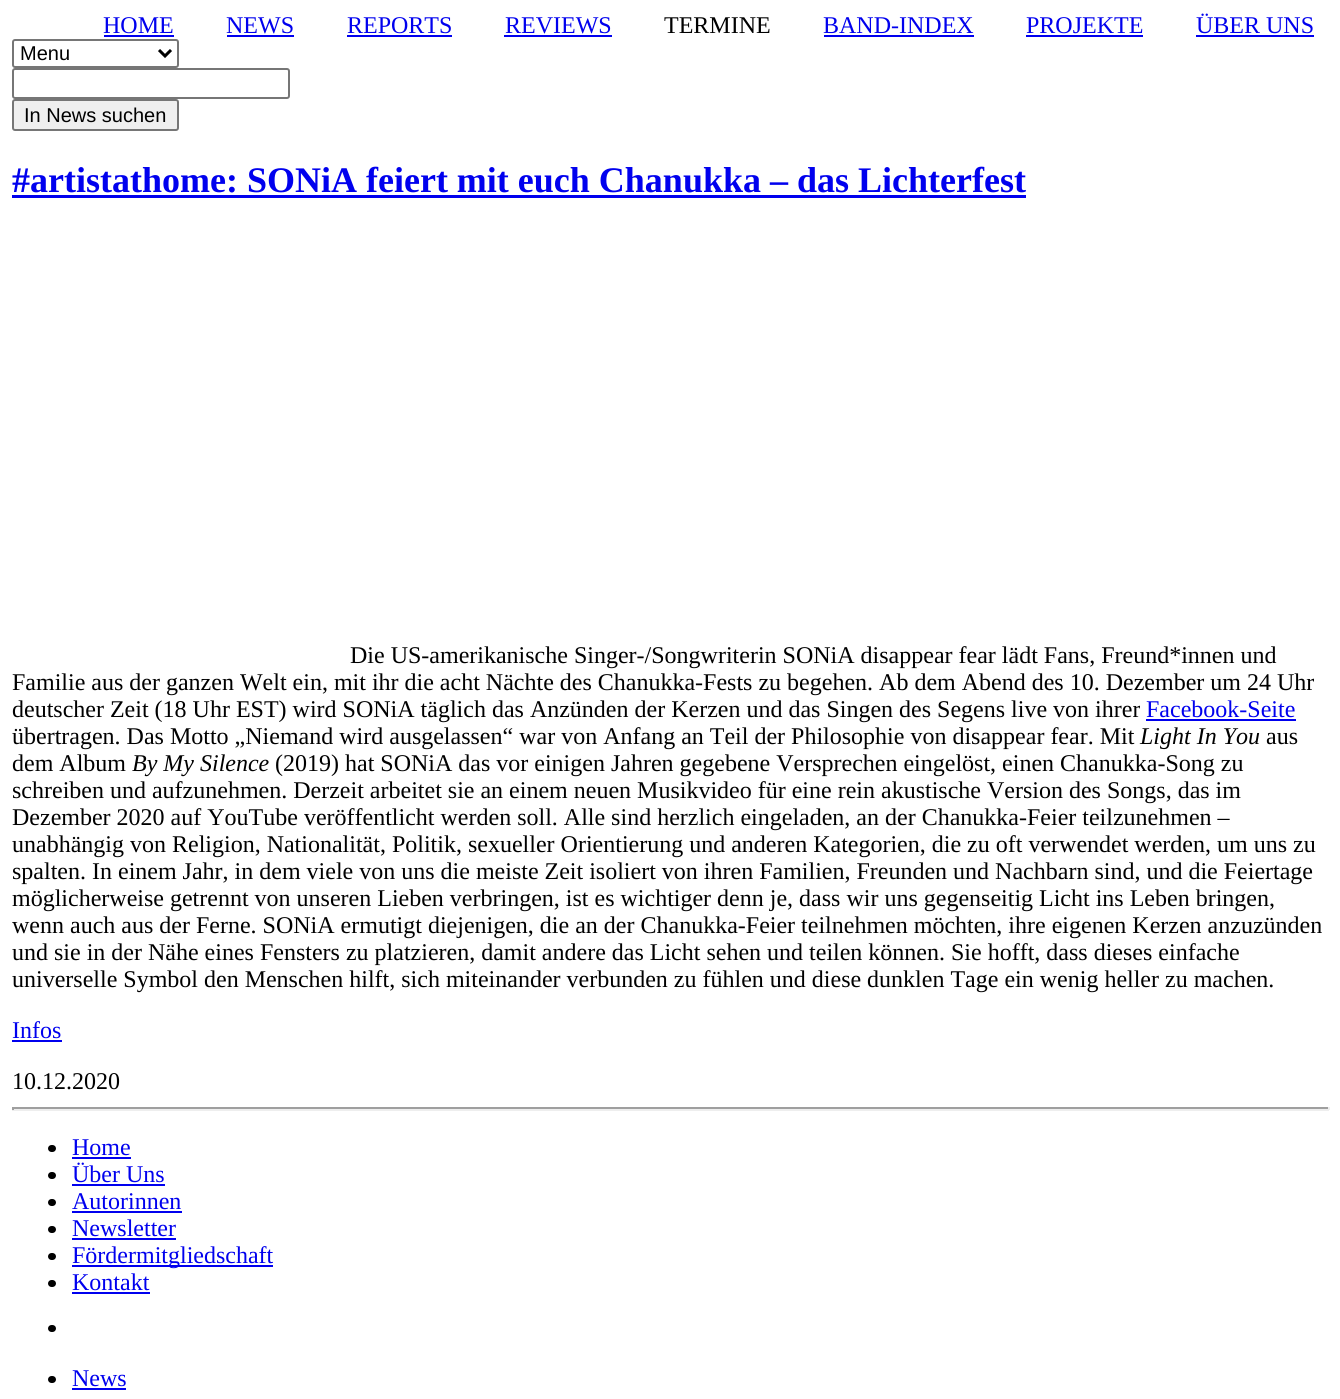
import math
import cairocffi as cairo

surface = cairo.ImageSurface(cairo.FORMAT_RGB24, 1340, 1399)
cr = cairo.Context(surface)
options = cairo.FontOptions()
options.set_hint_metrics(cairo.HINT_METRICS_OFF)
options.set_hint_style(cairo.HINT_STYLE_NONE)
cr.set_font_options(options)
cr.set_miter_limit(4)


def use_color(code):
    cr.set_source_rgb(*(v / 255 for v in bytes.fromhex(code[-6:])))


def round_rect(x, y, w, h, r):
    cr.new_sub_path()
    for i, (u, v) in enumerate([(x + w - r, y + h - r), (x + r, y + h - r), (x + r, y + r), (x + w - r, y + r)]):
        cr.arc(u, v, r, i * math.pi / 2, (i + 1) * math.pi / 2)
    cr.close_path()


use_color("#ffffff")
cr.paint()
cr.select_font_face("Liberation Serif")
cr.set_font_size(24)
use_color("#0000ee")
cr.move_to(103, 33)
cr.show_text("HOME")
cr.rectangle(104, 35, 70, 2)
cr.fill()
cr.move_to(226, 33)
cr.show_text("NEWS")
cr.rectangle(227, 35, 67, 2)
cr.fill()
cr.move_to(347, 33)
cr.show_text("REPORTS")
cr.rectangle(347, 35, 105, 2)
cr.fill()
cr.move_to(505, 33)
cr.show_text("REVIEWS")
cr.rectangle(504, 35, 108, 2)
cr.fill()
use_color("#000000")
cr.move_to(664, 33)
cr.show_text("TERMINE")
use_color("#0000ee")
cr.move_to(823, 33)
cr.show_text("BAND-INDEX")
cr.rectangle(824, 35, 150, 2)
cr.fill()
cr.move_to(1026, 33)
cr.show_text("PROJEKTE")
cr.rectangle(1026, 35, 117, 2)
cr.fill()
cr.move_to(1196, 33)
cr.show_text("ÜBER UNS")
cr.rectangle(1196, 35, 118, 2)
cr.fill()
round_rect(13, 40, 165, 27, 2)
use_color("#767676")
cr.stroke()
cr.new_path()
cr.move_to(159, 50)
cr.line_to(165, 56)
cr.line_to(171, 50)
use_color("#000000")
cr.set_line_width(3)
cr.stroke()
cr.select_font_face("Liberation Sans")
cr.set_font_size(20)
cr.move_to(20, 60)
cr.show_text("Menu")
round_rect(13, 69, 276, 29, 2)
use_color("#767676")
cr.set_line_width(2)
cr.stroke()
use_color("#efefef")
round_rect(13, 100, 165, 30, 2)
cr.fill_preserve()
use_color("#767676")
cr.stroke()
use_color("#000000")
cr.move_to(24, 122)
cr.show_text("In News suchen")
cr.select_font_face("Liberation Serif", cairo.FONT_SLANT_NORMAL, cairo.FONT_WEIGHT_BOLD)
cr.set_font_size(36)
use_color("#0000ee")
cr.move_to(12, 192)
cr.show_text("#artistathome: SONiA feiert mit euch Chanukka – das Lichterfest")
cr.rectangle(12, 195, 1014, 3)
cr.fill()
cr.select_font_face("Liberation Serif")
cr.set_font_size(24)
use_color("#000000")
cr.move_to(350, 663)
cr.show_text("Die US-amerikanische Singer-/Songwriterin SONiA disappear fear lädt Fans, Freund*innen und")
cr.move_to(12, 690)
cr.show_text("Familie aus der ganzen Welt ein, mit ihr die acht Nächte des Chanukka-Fests zu begehen. Ab dem Abend des 10. Dezember um 24 Uhr")
cr.move_to(12, 717)
cr.show_text("deutscher Zeit (18 Uhr EST) wird SONiA täglich das Anzünden der Kerzen und das Singen des Segens live von ihrer")
use_color("#0000ee")
cr.move_to(1146, 717)
cr.show_text("Facebook-Seite")
cr.rectangle(1146, 719, 150, 2)
cr.fill()
use_color("#000000")
cr.move_to(12, 744)
cr.show_text("übertragen. Das Motto „Niemand wird ausgelassen“ war von Anfang an Teil der Philosophie von disappear fear. Mit")
cr.select_font_face("Liberation Serif", cairo.FONT_SLANT_ITALIC)
cr.move_to(1140, 744)
cr.show_text("Light In You")
cr.select_font_face("Liberation Serif")
cr.move_to(1266, 744)
cr.show_text("aus")
cr.move_to(12, 771)
cr.show_text("dem Album")
cr.select_font_face("Liberation Serif", cairo.FONT_SLANT_ITALIC)
cr.move_to(132, 771)
cr.show_text("By My Silence")
cr.select_font_face("Liberation Serif")
cr.move_to(275, 771)
cr.show_text("(2019) hat SONiA das vor einigen Jahren gegebene Versprechen eingelöst, einen Chanukka-Song zu")
cr.move_to(12, 798)
cr.show_text("schreiben und aufzunehmen. Derzeit arbeitet sie an einem neuen Musikvideo für eine rein akustische Version des Songs, das im")
cr.move_to(12, 825)
cr.show_text("Dezember 2020 auf YouTube veröffentlicht werden soll. Alle sind herzlich eingeladen, an der Chanukka-Feier teilzunehmen –")
cr.move_to(12, 852)
cr.show_text("unabhängig von Religion, Nationalität, Politik, sexueller Orientierung und anderen Kategorien, die zu oft verwendet werden, um uns zu")
cr.move_to(12, 879)
cr.show_text("spalten. In einem Jahr, in dem viele von uns die meiste Zeit isoliert von ihren Familien, Freunden und Nachbarn sind, und die Feiertage")
cr.move_to(12, 906)
cr.show_text("möglicherweise getrennt von unseren Lieben verbringen, ist es wichtiger denn je, dass wir uns gegenseitig Licht ins Leben bringen,")
cr.move_to(12, 933)
cr.show_text("wenn auch aus der Ferne. SONiA ermutigt diejenigen, die an der Chanukka-Feier teilnehmen möchten, ihre eigenen Kerzen anzuzünden")
cr.move_to(12, 960)
cr.show_text("und sie in der Nähe eines Fensters zu platzieren, damit andere das Licht sehen und teilen können. Sie hofft, dass dieses einfache")
cr.move_to(12, 987)
cr.show_text("universelle Symbol den Menschen hilft, sich miteinander verbunden zu fühlen und diese dunklen Tage ein wenig heller zu machen.")
use_color("#0000ee")
cr.move_to(12, 1038)
cr.show_text("Infos")
cr.rectangle(12, 1040, 50, 2)
cr.fill()
use_color("#000000")
cr.move_to(12, 1089)
cr.show_text("10.12.2020")
use_color("#9f9f9f")
cr.rectangle(12, 1107, 1317, 2)
cr.fill()
use_color("#eeeeee")
cr.rectangle(1328, 1107, 2, 3)
cr.fill()
cr.rectangle(12, 1109, 1317, 2)
cr.fill()
use_color("#9f9f9f")
cr.rectangle(12, 1107, 2, 3)
cr.fill()
use_color("#000000")
round_rect(48, 1145, 8, 7, 3.5)
cr.fill()
use_color("#0000ee")
cr.move_to(72, 1155)
cr.show_text("Home")
cr.rectangle(72, 1157, 59, 2)
cr.fill()
use_color("#000000")
round_rect(48, 1172, 8, 7, 3.5)
cr.fill()
use_color("#0000ee")
cr.move_to(72, 1182)
cr.show_text("Über Uns")
cr.rectangle(72, 1184, 93, 2)
cr.fill()
use_color("#000000")
round_rect(48, 1199, 8, 7, 3.5)
cr.fill()
use_color("#0000ee")
cr.move_to(72, 1209)
cr.show_text("Autorinnen")
cr.rectangle(72, 1211, 110, 2)
cr.fill()
use_color("#000000")
round_rect(48, 1226, 8, 7, 3.5)
cr.fill()
use_color("#0000ee")
cr.move_to(72, 1236)
cr.show_text("Newsletter")
cr.rectangle(72, 1238, 104, 2)
cr.fill()
use_color("#000000")
round_rect(48, 1253, 8, 7, 3.5)
cr.fill()
use_color("#0000ee")
cr.rectangle(72, 1265, 201, 2)
cr.fill()
cr.move_to(72, 1263)
cr.show_text("Fördermitgliedschaft")
use_color("#000000")
round_rect(48, 1280, 8, 7, 3.5)
cr.fill()
use_color("#0000ee")
cr.move_to(72, 1290)
cr.show_text("Kontakt")
cr.rectangle(72, 1292, 78, 2)
cr.fill()
use_color("#000000")
round_rect(48, 1325, 8, 7, 3.5)
cr.fill()
round_rect(48, 1376, 8, 7, 3.5)
cr.fill()
use_color("#0000ee")
cr.move_to(72, 1386)
cr.show_text("News")
cr.rectangle(72, 1388, 54, 2)
cr.fill()
surface.write_to_png("result.png")
